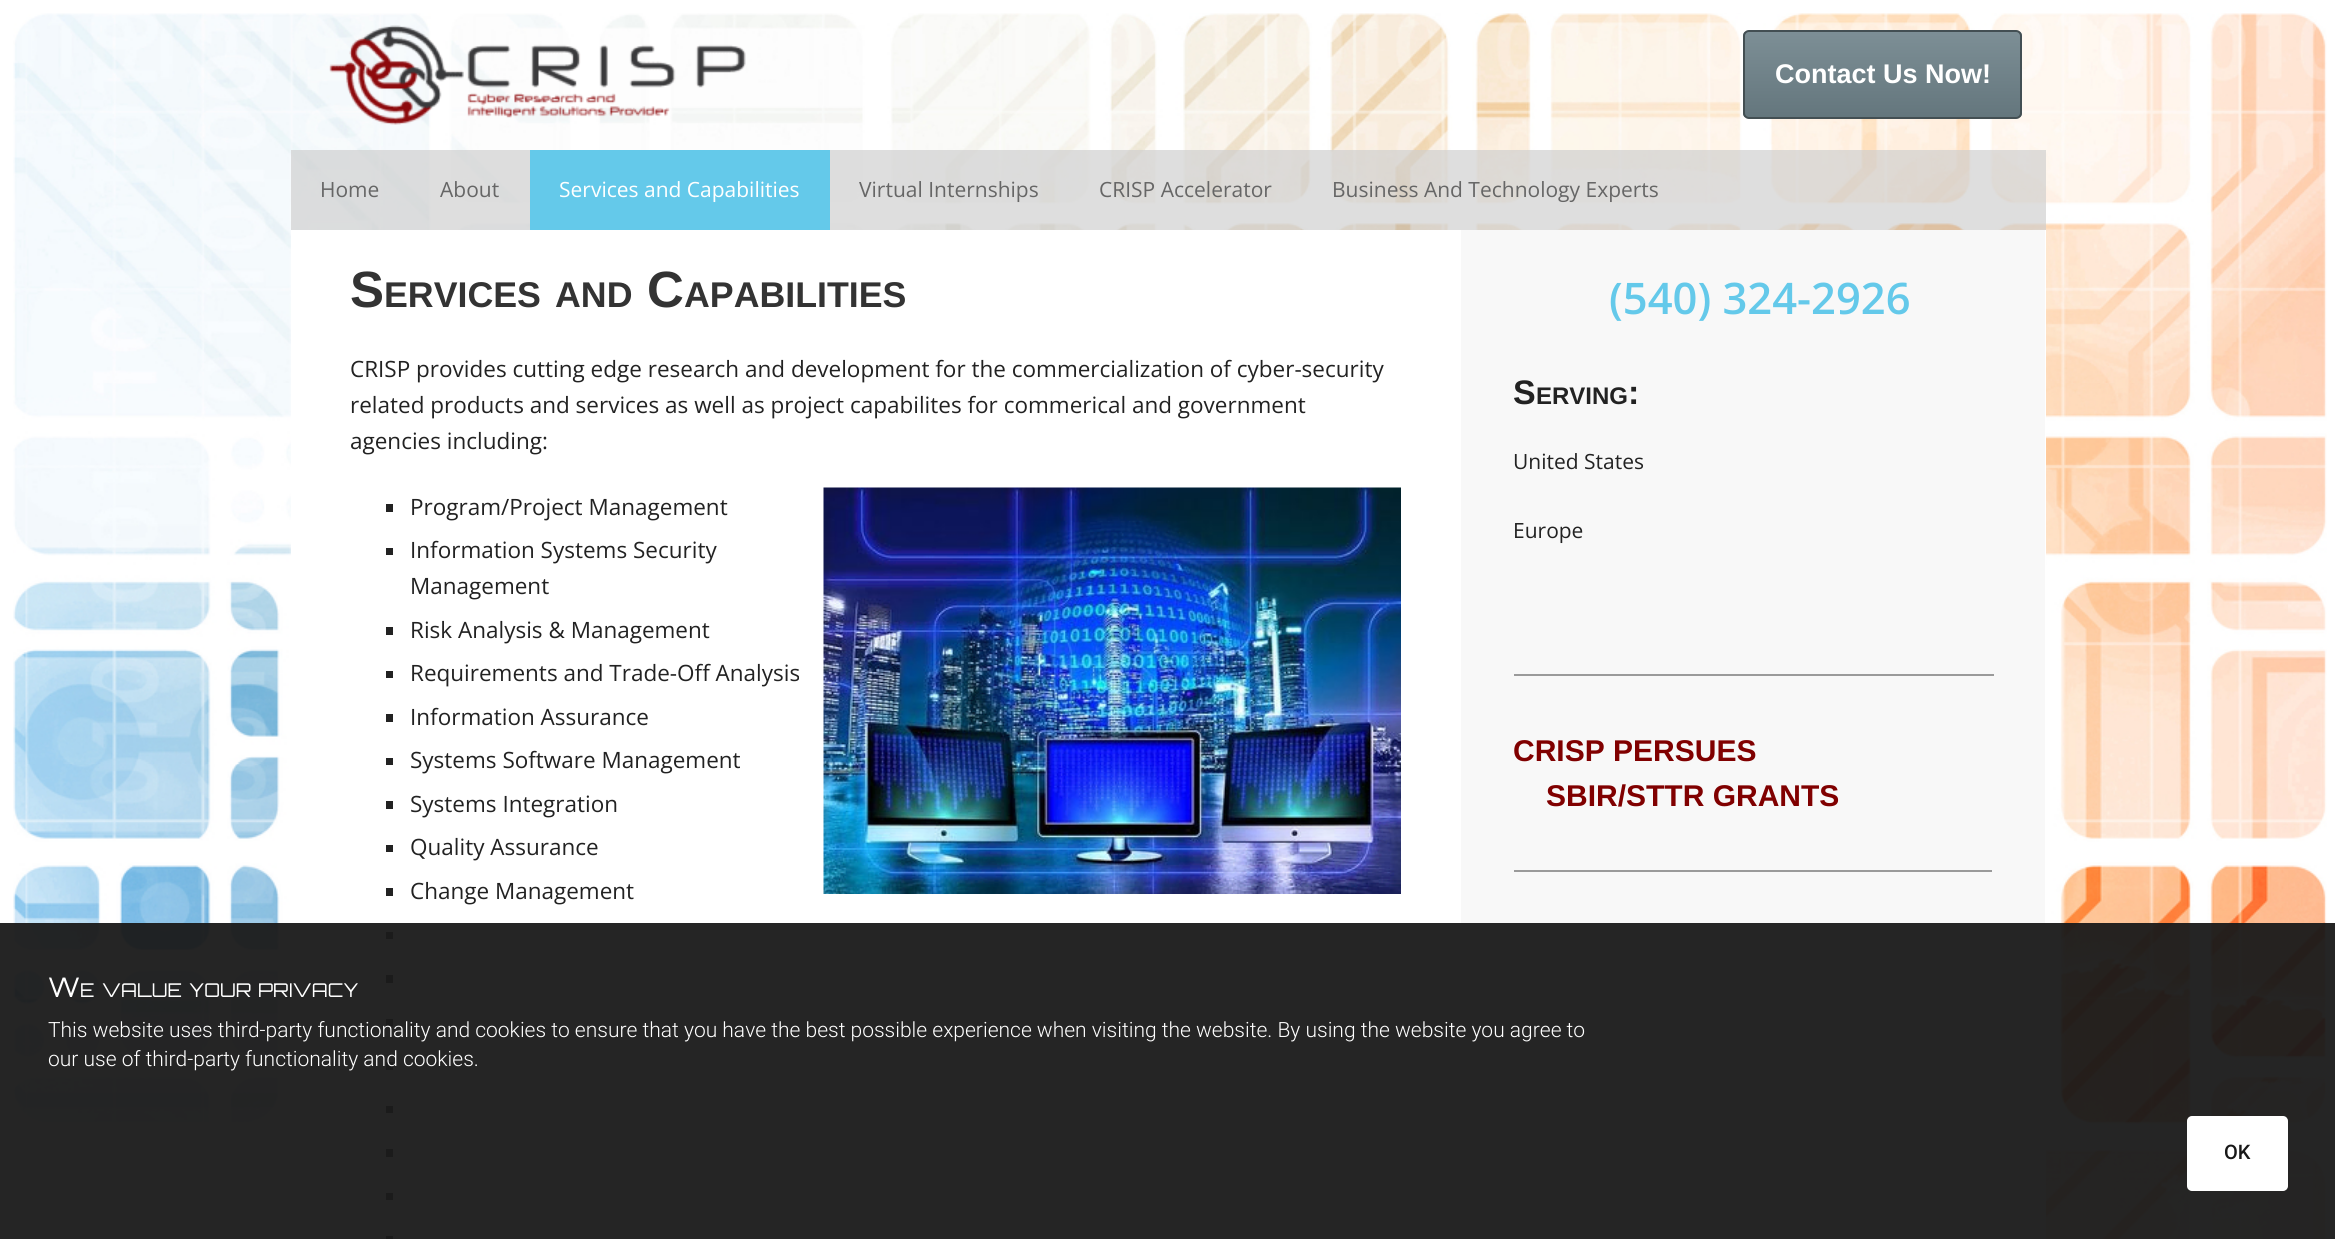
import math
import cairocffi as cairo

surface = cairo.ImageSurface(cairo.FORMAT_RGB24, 2335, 1239)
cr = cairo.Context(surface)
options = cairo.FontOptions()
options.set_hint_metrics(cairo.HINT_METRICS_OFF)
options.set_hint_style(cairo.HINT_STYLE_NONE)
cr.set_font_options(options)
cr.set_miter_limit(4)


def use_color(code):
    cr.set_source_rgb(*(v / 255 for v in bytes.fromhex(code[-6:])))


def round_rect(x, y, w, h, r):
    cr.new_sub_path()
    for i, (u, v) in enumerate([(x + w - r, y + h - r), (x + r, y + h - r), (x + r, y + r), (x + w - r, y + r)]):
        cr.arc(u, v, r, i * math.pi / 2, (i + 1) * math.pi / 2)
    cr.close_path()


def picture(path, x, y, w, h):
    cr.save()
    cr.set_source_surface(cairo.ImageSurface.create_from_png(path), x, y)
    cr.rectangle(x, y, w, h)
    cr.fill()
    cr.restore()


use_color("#ffffff")
cr.paint()
picture("img1.png", 13, 13, 2314, 1226)
picture("img2.png", 329, 25, 417, 100)
cr.save()
round_rect(1743, 30, 279, 89, 6)
cr.clip()
gradient = cairo.LinearGradient(1883, 31, 1883, 117)
gradient.add_color_stop_rgba(0, 0.49, 0.561, 0.588, 1)
gradient.add_color_stop_rgba(1, 0.392, 0.463, 0.49, 1)
cr.set_source(gradient)
cr.rectangle(1743, 32, 279, 85)
cr.fill()
cr.restore()
round_rect(1744, 31, 277, 87, 5)
use_color("#434f53")
cr.stroke()
cr.select_font_face("Liberation Sans", cairo.FONT_SLANT_NORMAL, cairo.FONT_WEIGHT_BOLD)
cr.set_font_size(27)
use_color("#ffffff")
cr.move_to(1775, 83)
cr.show_text("Contact Us Now!")
cr.set_source_rgba(0.8, 0.8, 0.8, 0.66)
cr.rectangle(291, 150, 1755, 80)
cr.fill()
cr.select_font_face("Open Sans")
cr.set_font_size(21)
use_color("#666666")
cr.move_to(320, 197)
cr.show_text("Home")
cr.move_to(440, 197)
cr.show_text("About")
use_color("#64c9ea")
cr.rectangle(530, 150, 300, 80)
cr.fill()
use_color("#ffffff")
cr.move_to(559, 197)
cr.show_text("Services and Capabilities")
use_color("#666666")
cr.move_to(859, 197)
cr.show_text("Virtual Internships")
cr.move_to(1099, 197)
cr.show_text("CRISP Accelerator")
cr.move_to(1332, 197)
cr.show_text("Business And Technology Experts")
use_color("#ffffff")
cr.rectangle(291, 230, 1755, 1009)
cr.fill()
cr.select_font_face("Liberation Sans", cairo.FONT_SLANT_NORMAL, cairo.FONT_WEIGHT_BOLD)
cr.set_font_size(51)
use_color("#333333")
cr.move_to(350, 307)
cr.show_text("S")
cr.set_font_size(35.75)
cr.move_to(384, 307)
cr.show_text("ERVICES")
cr.move_to(555, 307)
cr.show_text("AND")
cr.set_font_size(51)
cr.move_to(647, 307)
cr.show_text("C")
cr.set_font_size(35.75)
cr.move_to(684, 307)
cr.show_text("APABILITIES")
cr.select_font_face("Open Sans")
cr.set_font_size(22.5)
use_color("#222222")
cr.move_to(350, 377)
cr.show_text("CRISP provides cutting edge research and development for the commercialization of cyber-security")
cr.move_to(350, 413)
cr.show_text("related products and services as well as project capabilites for commerical and government")
cr.move_to(350, 449)
cr.show_text("agencies including:")
cr.rectangle(386, 504, 7, 8)
cr.fill()
cr.move_to(410, 515)
cr.show_text("Program/Project Management")
cr.rectangle(386, 548, 7, 7)
cr.fill()
cr.move_to(410, 558)
cr.show_text("Information Systems Security")
cr.move_to(410, 594)
cr.show_text("Management")
cr.rectangle(386, 627, 7, 8)
cr.fill()
cr.move_to(410, 638)
cr.show_text("Risk Analysis & Management")
cr.rectangle(386, 671, 7, 7)
cr.fill()
cr.move_to(410, 681)
cr.show_text("Requirements and Trade-Off Analysis")
cr.rectangle(386, 714, 7, 8)
cr.fill()
cr.move_to(410, 725)
cr.show_text("Information Assurance")
cr.rectangle(386, 758, 7, 7)
cr.fill()
cr.move_to(410, 768)
cr.show_text("Systems Software Management")
cr.rectangle(386, 801, 7, 8)
cr.fill()
cr.move_to(410, 812)
cr.show_text("Systems Integration")
cr.rectangle(386, 845, 7, 7)
cr.fill()
cr.move_to(410, 855)
cr.show_text("Quality Assurance")
cr.rectangle(386, 888, 7, 8)
cr.fill()
cr.move_to(410, 899)
cr.show_text("Change Management")
cr.rectangle(386, 932, 7, 7)
cr.fill()
cr.rectangle(386, 975, 7, 8)
cr.fill()
cr.rectangle(386, 1019, 7, 7)
cr.fill()
cr.rectangle(386, 1062, 7, 8)
cr.fill()
cr.rectangle(386, 1106, 7, 7)
cr.fill()
cr.rectangle(386, 1149, 7, 8)
cr.fill()
cr.rectangle(386, 1193, 7, 7)
cr.fill()
cr.rectangle(386, 1236, 7, 3)
cr.fill()
picture("img3.png", 823, 487, 578, 407)
use_color("#f8f8f8")
cr.rectangle(1461, 230, 584, 1009)
cr.fill()
cr.select_font_face("Open Sans SemiBold")
cr.set_font_size(43.5)
use_color("#64c9ea")
cr.move_to(1609, 314)
cr.show_text("(540) 324-2926")
cr.select_font_face("Liberation Sans", cairo.FONT_SLANT_NORMAL, cairo.FONT_WEIGHT_BOLD)
cr.set_font_size(34)
use_color("#222222")
cr.move_to(1513, 404)
cr.show_text("S")
cr.set_font_size(24)
cr.move_to(1536, 404)
cr.show_text("ERVING")
cr.set_font_size(34)
cr.move_to(1628, 404)
cr.show_text(":")
cr.select_font_face("Open Sans")
cr.set_font_size(21)
cr.move_to(1513, 469)
cr.show_text("United States")
cr.move_to(1513, 538)
cr.show_text("Europe")
use_color("#9a9a9a")
cr.rectangle(1514, 674, 480, 2)
cr.fill()
cr.select_font_face("Liberation Sans", cairo.FONT_SLANT_NORMAL, cairo.FONT_WEIGHT_BOLD)
cr.set_font_size(30)
use_color("#800000")
cr.move_to(1513, 761)
cr.show_text("CRISP PERSUES")
cr.move_to(1546, 806)
cr.show_text("SBIR/STTR GRANTS")
use_color("#9a9a9a")
cr.rectangle(1514, 870, 478, 2)
cr.fill()
cr.set_source_rgba(0.106, 0.106, 0.106, 0.95)
cr.rectangle(0, 923, 2335, 316)
cr.fill()
cr.select_font_face("Orbitron")
cr.set_font_size(27)
use_color("#ffffff")
cr.move_to(48, 997)
cr.show_text("W")
cr.set_font_size(19)
cr.move_to(80, 997)
cr.show_text("E")
cr.move_to(102, 997)
cr.show_text("VALUE")
cr.move_to(189, 997)
cr.show_text("YOUR")
cr.move_to(258, 997)
cr.show_text("PRIVACY")
cr.select_font_face("Roboto Light")
cr.set_font_size(21)
cr.move_to(48, 1037)
cr.show_text("This website uses third-party functionality and cookies to ensure that you have the best possible experience when visiting the website. By using the website you agree to")
cr.move_to(48, 1066)
cr.show_text("our use of third-party functionality and cookies.")
round_rect(2188, 1117, 99, 73, 4)
cr.fill_preserve()
cr.stroke()
cr.select_font_face("Roboto Medium")
cr.set_font_size(20)
use_color("#181818")
cr.move_to(2224, 1159)
cr.show_text("OK")
surface.write_to_png("result.png")
